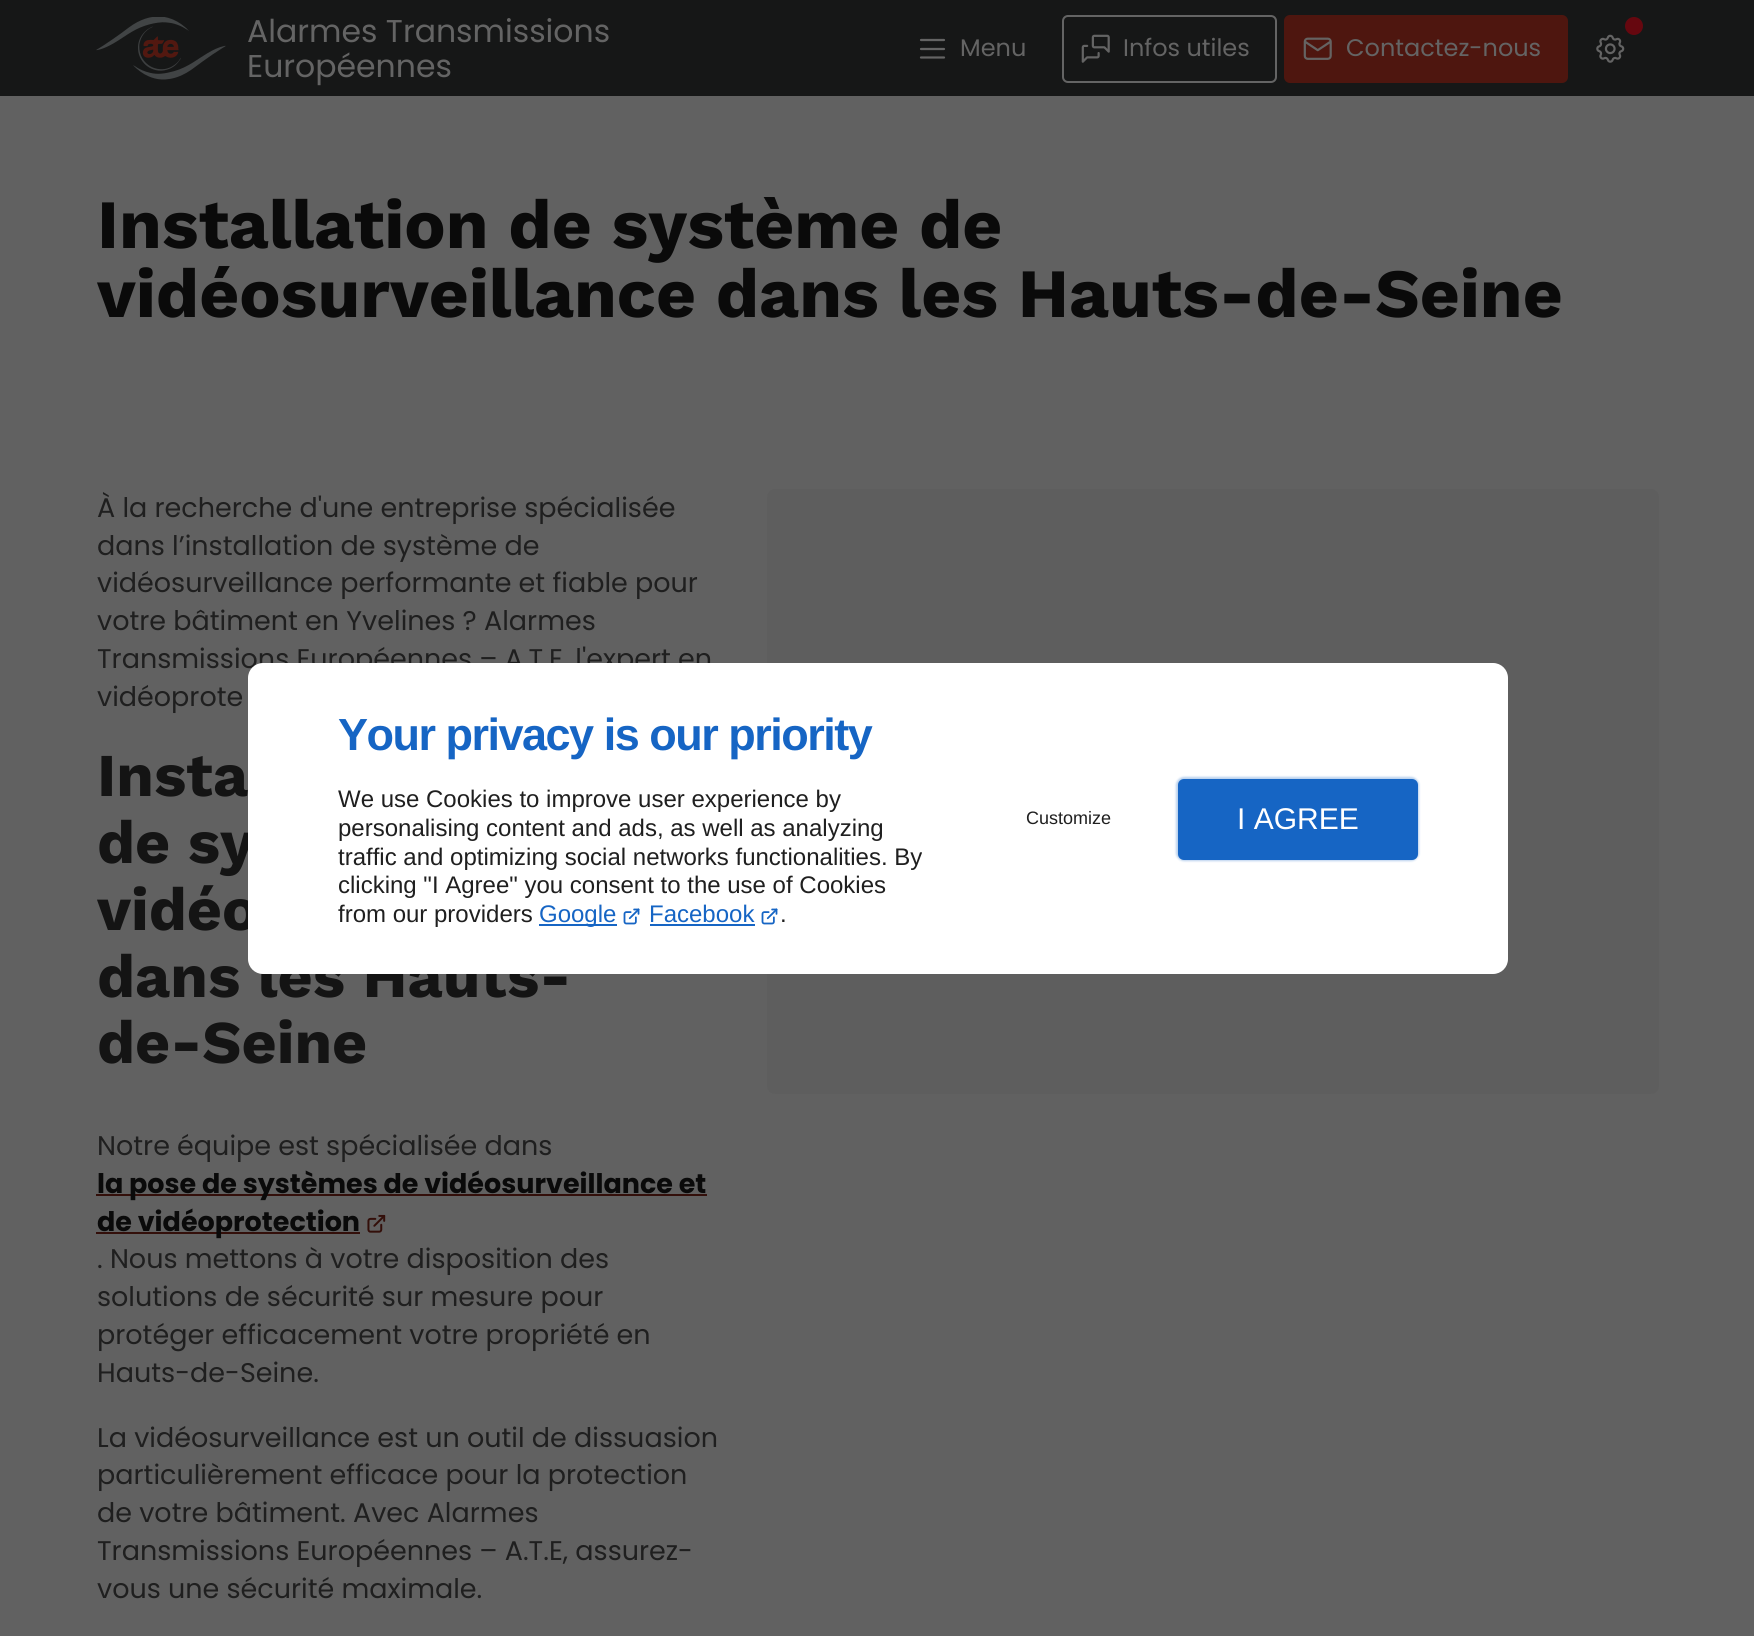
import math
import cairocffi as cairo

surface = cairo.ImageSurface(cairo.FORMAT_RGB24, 1754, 1636)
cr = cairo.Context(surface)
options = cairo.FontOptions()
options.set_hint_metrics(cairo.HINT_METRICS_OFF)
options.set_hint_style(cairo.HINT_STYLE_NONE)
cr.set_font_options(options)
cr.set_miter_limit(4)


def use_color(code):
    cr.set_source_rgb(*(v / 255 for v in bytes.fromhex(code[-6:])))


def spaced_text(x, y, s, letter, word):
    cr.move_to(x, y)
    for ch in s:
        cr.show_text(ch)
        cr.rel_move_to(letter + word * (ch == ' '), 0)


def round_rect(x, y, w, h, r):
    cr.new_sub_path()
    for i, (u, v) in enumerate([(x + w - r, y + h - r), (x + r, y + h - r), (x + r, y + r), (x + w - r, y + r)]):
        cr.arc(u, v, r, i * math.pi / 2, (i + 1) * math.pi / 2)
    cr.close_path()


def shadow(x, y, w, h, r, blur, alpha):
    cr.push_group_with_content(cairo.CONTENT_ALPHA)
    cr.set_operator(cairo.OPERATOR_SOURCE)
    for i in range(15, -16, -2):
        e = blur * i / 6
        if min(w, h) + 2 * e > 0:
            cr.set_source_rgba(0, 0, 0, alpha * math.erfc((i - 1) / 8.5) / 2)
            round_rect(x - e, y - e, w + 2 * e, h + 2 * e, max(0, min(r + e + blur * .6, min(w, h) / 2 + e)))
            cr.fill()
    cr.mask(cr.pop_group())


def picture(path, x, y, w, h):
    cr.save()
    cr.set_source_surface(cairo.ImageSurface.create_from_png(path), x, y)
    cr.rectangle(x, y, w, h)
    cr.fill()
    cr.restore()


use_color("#161717")
cr.paint()
picture("img1.png", 96, 17, 130, 63)
cr.select_font_face("Poppins")
cr.set_font_size(31.5)
use_color("#646464")
cr.move_to(247, 42)
cr.show_text("Alarmes Transmissions")
cr.move_to(247, 77)
cr.show_text("Européennes")
cr.new_path()
cr.move_to(921, 40)
cr.line_to(944, 40)
cr.move_to(921, 49)
cr.line_to(944, 49)
cr.move_to(921, 57.5)
cr.line_to(944, 57.5)
cr.set_line_width(2.2)
cr.set_line_cap(cairo.LINE_CAP_ROUND)
cr.set_line_join(cairo.LINE_JOIN_ROUND)
cr.stroke()
cr.set_font_size(24)
cr.move_to(960, 56)
cr.show_text("Menu")
round_rect(1063, 16, 213, 66, 5)
cr.set_line_width(2)
cr.set_line_cap(cairo.LINE_CAP_BUTT)
cr.set_line_join(cairo.LINE_JOIN_MITER)
cr.stroke()
picture("img2.png", 1081, 34, 29, 29)
cr.move_to(1123, 56)
cr.show_text("Infos utiles")
use_color("#4e160f")
round_rect(1284, 15, 284, 68, 6)
cr.fill()
picture("img3.png", 1303, 37, 29, 23)
use_color("#646464")
cr.move_to(1346, 56)
cr.show_text("Contactez-nous")
use_color("#66070f")
cr.new_path()
cr.arc(1634, 26, 9, 0, 2 * math.pi)
cr.fill()
picture("img4.png", 1596, 34, 29, 29)
use_color("#616161")
cr.rectangle(0, 96, 1754, 1540)
cr.fill()
cr.select_font_face("Work Sans", cairo.FONT_SLANT_NORMAL, cairo.FONT_WEIGHT_BOLD)
cr.set_font_size(69.1)
use_color("#0a0a0a")
cr.move_to(97, 248)
cr.show_text("Installation de système de")
cr.move_to(97, 317)
cr.show_text("vidéosurveillance dans les Hauts-de-Seine")
cr.select_font_face("Poppins")
cr.set_font_size(27)
use_color("#1f1f1f")
cr.move_to(97, 517)
cr.show_text("À la recherche d'une entreprise spécialisée")
cr.move_to(97, 555)
cr.show_text("dans l’installation de système de")
cr.move_to(97, 592)
cr.show_text("vidéosurveillance performante et fiable pour")
cr.move_to(97, 630)
cr.show_text("votre bâtiment en Yvelines ? Alarmes")
cr.move_to(97, 668)
cr.show_text("Transmissions Européennes – A.T.E, l'expert en")
cr.move_to(97, 706)
cr.show_text("vidéoprote")
cr.select_font_face("Work Sans", cairo.FONT_SLANT_NORMAL, cairo.FONT_WEIGHT_BOLD)
cr.set_font_size(60.75)
use_color("#141414")
cr.move_to(97, 796)
cr.show_text("Insta")
cr.move_to(97, 863)
cr.show_text("de sy")
cr.move_to(97, 930)
cr.show_text("vidéo")
cr.move_to(97, 997)
cr.show_text("dans les Hauts-")
cr.move_to(97, 1063)
cr.show_text("de-Seine")
cr.select_font_face("Poppins")
cr.set_font_size(27)
use_color("#1f1f1f")
cr.move_to(97, 1155)
cr.show_text("Notre équipe est spécialisée dans")
use_color("#330f0a")
cr.rectangle(96, 1194, 611, 2)
cr.fill()
cr.select_font_face("Poppins", cairo.FONT_SLANT_NORMAL, cairo.FONT_WEIGHT_BOLD)
use_color("#0a0a0a")
cr.move_to(97, 1193)
cr.show_text("la pose de systèmes de vidéosurveillance et")
use_color("#330f0a")
cr.rectangle(96, 1232, 264, 2)
cr.fill()
use_color("#0a0a0a")
cr.move_to(97, 1231)
cr.show_text("de vidéoprotection")
picture("img5.png", 367, 1214, 19, 19)
cr.select_font_face("Poppins")
use_color("#1f1f1f")
cr.move_to(97, 1268)
cr.show_text(". Nous mettons à votre disposition des")
cr.move_to(97, 1306)
cr.show_text("solutions de sécurité sur mesure pour")
cr.move_to(97, 1344)
cr.show_text("protéger efficacement votre propriété en")
cr.move_to(97, 1382)
cr.show_text("Hauts-de-Seine.")
cr.move_to(97, 1447)
cr.show_text("La vidéosurveillance est un outil de dissuasion")
cr.move_to(97, 1484)
cr.show_text("particulièrement efficace pour la protection")
cr.move_to(97, 1522)
cr.show_text("de votre bâtiment. Avec Alarmes")
cr.move_to(97, 1560)
cr.show_text("Transmissions Européennes – A.T.E, assurez-")
cr.move_to(97, 1598)
cr.show_text("vous une sécurité maximale.")
use_color("#5e5e5e")
round_rect(767, 489, 892, 605, 8)
cr.fill()
use_color("#ffffff")
round_rect(248, 663, 1260, 311, 15)
cr.fill()
cr.select_font_face("Liberation Sans", cairo.FONT_SLANT_NORMAL, cairo.FONT_WEIGHT_BOLD)
cr.set_font_size(45)
use_color("#1665c4")
spaced_text(338, 750, "Your privacy is our priority", -1.5, 0)
cr.select_font_face("Liberation Sans")
cr.set_font_size(24)
use_color("#1f1f1f")
cr.move_to(338, 807)
cr.show_text("We use Cookies to improve user experience by")
cr.move_to(338, 836)
cr.show_text("personalising content and ads, as well as analyzing")
cr.move_to(338, 865)
cr.show_text("traffic and optimizing social networks functionalities. By")
cr.move_to(338, 893)
cr.show_text("clicking \"I Agree\" you consent to the use of Cookies")
cr.move_to(338, 922)
cr.show_text("from our providers")
use_color("#1665c4")
cr.rectangle(539, 924, 78, 2)
cr.fill()
cr.move_to(539, 922)
cr.show_text("Google")
picture("img6.png", 623, 908, 17, 17)
cr.move_to(649, 922)
cr.show_text("Facebook")
cr.rectangle(650, 924, 105, 2)
cr.fill()
picture("img6.png", 761, 908, 17, 17)
use_color("#1f1f1f")
cr.move_to(780, 922)
cr.show_text(".")
cr.set_font_size(18)
cr.move_to(1026, 824)
cr.show_text("Customize")
use_color("#1665c4")
shadow(1176, 777, 243, 84, 8, 1, 0.3)
use_color("#1665c4")
round_rect(1179.5, 780.5, 237, 78, 4.5)
cr.fill_preserve()
cr.set_line_width(3)
cr.stroke()
cr.set_font_size(30)
use_color("#ffffff")
cr.move_to(1237, 829)
cr.show_text("I AGREE")
surface.write_to_png("result.png")
